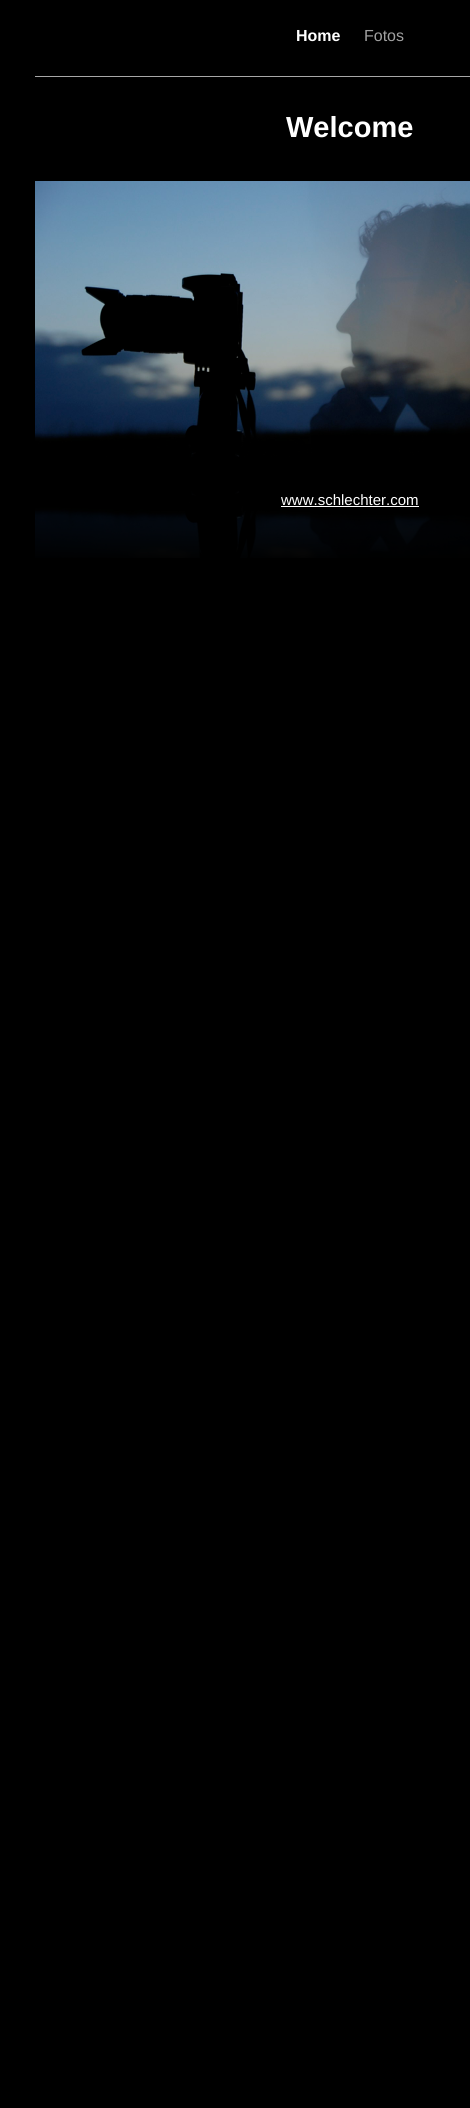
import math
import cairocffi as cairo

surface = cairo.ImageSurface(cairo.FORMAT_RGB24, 470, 2108)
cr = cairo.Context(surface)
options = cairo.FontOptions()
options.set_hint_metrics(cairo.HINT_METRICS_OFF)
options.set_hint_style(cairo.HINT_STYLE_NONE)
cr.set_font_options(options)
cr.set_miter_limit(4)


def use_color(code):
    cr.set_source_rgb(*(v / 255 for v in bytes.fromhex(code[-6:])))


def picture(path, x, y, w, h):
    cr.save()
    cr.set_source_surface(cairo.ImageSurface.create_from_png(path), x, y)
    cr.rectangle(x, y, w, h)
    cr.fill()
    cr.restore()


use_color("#000000")
cr.paint()
cr.select_font_face("Liberation Sans", cairo.FONT_SLANT_NORMAL, cairo.FONT_WEIGHT_BOLD)
cr.set_font_size(16)
use_color("#ffffff")
cr.move_to(296, 41)
cr.show_text("Home")
cr.select_font_face("Liberation Sans")
use_color("#a1a1a1")
cr.move_to(364, 41)
cr.show_text("Fotos")
use_color("#a7a7a7")
cr.rectangle(35, 76, 435, 1)
cr.fill()
cr.select_font_face("Liberation Sans", cairo.FONT_SLANT_NORMAL, cairo.FONT_WEIGHT_BOLD)
cr.set_font_size(29)
use_color("#ffffff")
cr.move_to(286, 137)
cr.show_text("Welcome")
picture("img1.png", 35, 181, 435, 276)
picture("img2.png", 35, 491, 435, 67)
cr.select_font_face("Liberation Sans")
cr.set_font_size(15)
cr.move_to(281, 505)
cr.show_text("www.schlechter.com")
cr.rectangle(281, 506, 138, 1)
cr.fill()
surface.write_to_png("result.png")
